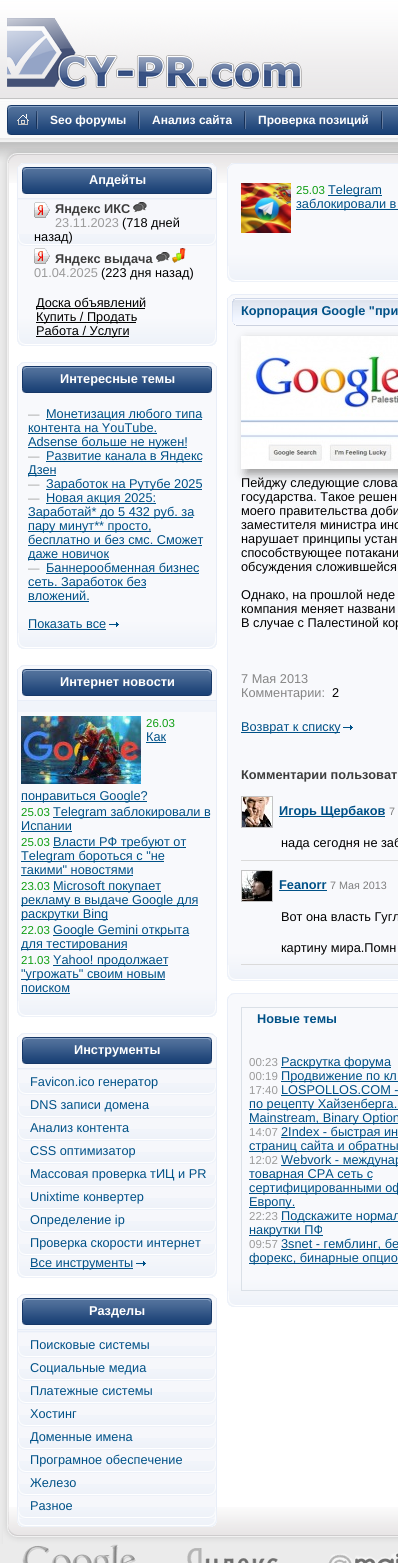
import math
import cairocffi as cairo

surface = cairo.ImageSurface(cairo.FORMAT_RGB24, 398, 1563)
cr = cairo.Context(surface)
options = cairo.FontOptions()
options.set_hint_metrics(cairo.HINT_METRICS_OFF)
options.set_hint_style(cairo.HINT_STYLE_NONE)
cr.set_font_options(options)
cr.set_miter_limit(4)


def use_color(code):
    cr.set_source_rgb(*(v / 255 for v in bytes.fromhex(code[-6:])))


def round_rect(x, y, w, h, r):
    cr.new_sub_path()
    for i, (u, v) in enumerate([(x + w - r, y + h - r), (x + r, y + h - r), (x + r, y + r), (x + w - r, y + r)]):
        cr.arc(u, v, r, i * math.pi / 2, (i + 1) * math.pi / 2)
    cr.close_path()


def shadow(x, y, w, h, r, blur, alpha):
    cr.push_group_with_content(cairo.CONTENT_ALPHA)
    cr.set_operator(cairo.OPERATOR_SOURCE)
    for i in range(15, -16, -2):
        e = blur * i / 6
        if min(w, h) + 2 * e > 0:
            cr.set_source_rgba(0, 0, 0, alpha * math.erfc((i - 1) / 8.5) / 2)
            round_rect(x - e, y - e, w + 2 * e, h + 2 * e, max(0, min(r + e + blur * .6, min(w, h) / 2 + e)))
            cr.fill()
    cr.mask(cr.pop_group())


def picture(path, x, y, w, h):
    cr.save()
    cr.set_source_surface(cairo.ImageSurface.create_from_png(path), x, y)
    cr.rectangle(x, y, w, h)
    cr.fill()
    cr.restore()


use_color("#ebebeb")
cr.paint()
picture("img1.png", 0, 0, 398, 148)
picture("img2.png", 7, 18, 295, 71)
picture("img4.png", 12, 105, 386, 30)
picture("img3.png", 17, 114, 12, 11)
picture("img5.png", 7, 105, 5, 30)
picture("img6.png", 36, 111, 2, 18)
cr.select_font_face("Liberation Sans", cairo.FONT_SLANT_NORMAL, cairo.FONT_WEIGHT_BOLD)
cr.set_font_size(12)
use_color("#ffffff")
cr.move_to(50, 124)
cr.show_text("Seo форумы")
picture("img6.png", 138, 111, 2, 18)
cr.move_to(152, 124)
cr.show_text("Анализ сайта")
picture("img6.png", 244, 111, 2, 18)
cr.move_to(258, 124)
cr.show_text("Проверка позиций")
picture("img6.png", 381, 111, 2, 18)
cr.rectangle(9, 183, 389, 1324)
cr.fill()
picture("img7.png", 9, 148, 389, 35)
picture("img8.png", 9, 1507, 389, 37)
picture("img9.png", 0, 163, 9, 1381)
picture("img10.png", 0, 148, 17, 15)
picture("img11.png", 18, 163, 7, 4)
use_color("#f8f9fc")
cr.rectangle(25, 164, 184, 3)
cr.fill()
use_color("#e9eef8")
cr.rectangle(25, 163, 184, 1)
cr.fill()
picture("img12.png", 209, 163, 7, 4)
use_color("#f8f9fc")
cr.rectangle(18, 167, 198, 31)
cr.fill()
picture("img13.png", 22, 167, 190, 28)
picture("img14.png", 22, 167, 4, 27)
cr.set_font_size(12.75)
use_color("#ffffff")
cr.move_to(89, 184)
cr.show_text("Апдейты")
picture("img15.png", 208, 167, 4, 27)
use_color("#f8f9fc")
cr.rectangle(18, 246, 198, 73)
cr.fill()
picture("img16.png", 18, 319, 198, 19)
use_color("#e9eef8")
cr.rectangle(216, 167, 1, 171)
cr.fill()
cr.rectangle(17, 167, 1, 171)
cr.fill()
use_color("#f1f4fa")
cr.rectangle(18, 199, 198, 1)
cr.fill()
use_color("#e9eef8")
cr.rectangle(18, 198, 198, 1)
cr.fill()
use_color("#f6f7fb")
cr.rectangle(18, 200, 198, 34)
cr.fill()
picture("img17.png", 18, 234, 198, 12)
picture("img18.png", 34, 202, 16, 16)
use_color("#3d3d3d")
cr.move_to(55, 213)
cr.show_text("Яндекс ИКС")
picture("img19.png", 133, 202, 14, 11)
cr.select_font_face("Liberation Sans")
use_color("#9b9b9b")
cr.move_to(55, 227)
cr.show_text("23.11.2023")
use_color("#000000")
cr.move_to(122, 227)
cr.show_text("(718 дней")
cr.move_to(34, 241)
cr.show_text("назад)")
picture("img20.png", 34, 248, 16, 16)
cr.select_font_face("Liberation Sans", cairo.FONT_SLANT_NORMAL, cairo.FONT_WEIGHT_BOLD)
use_color("#3d3d3d")
cr.move_to(55, 263)
cr.show_text("Яндекс выдача")
picture("img21.png", 156, 252, 14, 11)
picture("img22.png", 172, 248, 14, 15)
cr.select_font_face("Liberation Sans")
use_color("#9b9b9b")
cr.move_to(34, 277)
cr.show_text("01.04.2025")
use_color("#000000")
cr.move_to(101, 277)
cr.show_text("(223 дня назад)")
cr.rectangle(36, 308, 109, 1)
cr.fill()
cr.move_to(36, 307)
cr.show_text("Доска объявлений")
cr.rectangle(36, 322, 100, 1)
cr.fill()
cr.move_to(36, 321)
cr.show_text("Купить / Продать")
cr.rectangle(36, 336, 93, 1)
cr.fill()
cr.move_to(36, 335)
cr.show_text("Работа / Услуги")
picture("img23.png", 17, 330, 8, 16)
picture("img24.png", 25, 338, 184, 8)
picture("img25.png", 209, 330, 8, 16)
picture("img26.png", 18, 362, 7, 4)
use_color("#f8f9fc")
cr.rectangle(25, 363, 184, 3)
cr.fill()
use_color("#e9eef8")
cr.rectangle(25, 362, 184, 1)
cr.fill()
picture("img27.png", 209, 362, 7, 4)
use_color("#f8f9fc")
cr.rectangle(18, 366, 198, 256)
cr.fill()
picture("img13.png", 22, 366, 190, 28)
picture("img14.png", 22, 366, 4, 27)
cr.select_font_face("Liberation Sans", cairo.FONT_SLANT_NORMAL, cairo.FONT_WEIGHT_BOLD)
use_color("#ffffff")
cr.move_to(60, 383)
cr.show_text("Интересные темы")
picture("img15.png", 208, 366, 4, 27)
picture("img16.png", 18, 622, 198, 19)
use_color("#e9eef8")
cr.rectangle(216, 366, 1, 275)
cr.fill()
cr.rectangle(17, 366, 1, 275)
cr.fill()
cr.select_font_face("Liberation Sans")
cr.set_font_size(11.5)
use_color("#9b9b9b")
cr.move_to(28, 418)
cr.show_text("—")
use_color("#005187")
cr.rectangle(46, 419, 156, 1)
cr.fill()
cr.set_font_size(12.75)
cr.move_to(46, 418)
cr.show_text("Монетизация любого типа")
cr.move_to(28, 432)
cr.show_text("контента на YouTube.")
cr.rectangle(28, 433, 129, 1)
cr.fill()
cr.rectangle(28, 447, 159, 1)
cr.fill()
cr.move_to(28, 446)
cr.show_text("Adsense больше не нужен!")
cr.set_font_size(11.5)
use_color("#9b9b9b")
cr.move_to(28, 460)
cr.show_text("—")
use_color("#005187")
cr.rectangle(46, 461, 156, 1)
cr.fill()
cr.set_font_size(12.75)
cr.move_to(46, 460)
cr.show_text("Развитие канала в Яндекс")
cr.rectangle(28, 475, 28, 1)
cr.fill()
cr.move_to(28, 474)
cr.show_text("Дзен")
cr.set_font_size(11.5)
use_color("#9b9b9b")
cr.move_to(28, 488)
cr.show_text("—")
use_color("#005187")
cr.rectangle(46, 489, 156, 1)
cr.fill()
cr.set_font_size(12.75)
cr.move_to(46, 488)
cr.show_text("Заработок на Рутубе 2025")
cr.set_font_size(11.5)
use_color("#9b9b9b")
cr.move_to(28, 502)
cr.show_text("—")
use_color("#005187")
cr.rectangle(46, 503, 110, 1)
cr.fill()
cr.set_font_size(12.75)
cr.move_to(46, 502)
cr.show_text("Новая акция 2025:")
cr.rectangle(28, 517, 165, 1)
cr.fill()
cr.move_to(28, 516)
cr.show_text("Заработай* до 5 432 руб. за")
cr.rectangle(28, 531, 123, 1)
cr.fill()
cr.move_to(28, 530)
cr.show_text("пару минут** просто,")
cr.move_to(28, 544)
cr.show_text("бесплатно и без смс. Сможет")
cr.rectangle(28, 545, 174, 1)
cr.fill()
cr.rectangle(28, 559, 81, 1)
cr.fill()
cr.move_to(28, 558)
cr.show_text("даже новичок")
cr.set_font_size(11.5)
use_color("#9b9b9b")
cr.move_to(28, 572)
cr.show_text("—")
use_color("#005187")
cr.rectangle(46, 573, 153, 1)
cr.fill()
cr.set_font_size(12.75)
cr.move_to(46, 572)
cr.show_text("Баннерообменная бизнес")
cr.rectangle(28, 587, 118, 1)
cr.fill()
cr.move_to(28, 586)
cr.show_text("сеть. Заработок без")
cr.move_to(28, 600)
cr.show_text("вложений.")
cr.rectangle(28, 601, 61, 1)
cr.fill()
cr.move_to(28, 628)
cr.show_text("Показать все")
cr.rectangle(28, 629, 78, 1)
cr.fill()
picture("img28.png", 109, 622, 10, 5)
picture("img23.png", 17, 633, 8, 16)
picture("img24.png", 25, 641, 184, 8)
picture("img25.png", 209, 633, 8, 16)
picture("img26.png", 18, 665, 7, 4)
use_color("#f8f9fc")
cr.rectangle(25, 666, 184, 3)
cr.fill()
use_color("#e9eef8")
cr.rectangle(25, 665, 184, 1)
cr.fill()
picture("img27.png", 209, 665, 7, 4)
use_color("#f8f9fc")
cr.rectangle(18, 669, 198, 31)
cr.fill()
picture("img13.png", 22, 669, 190, 28)
picture("img14.png", 22, 669, 4, 27)
cr.select_font_face("Liberation Sans", cairo.FONT_SLANT_NORMAL, cairo.FONT_WEIGHT_BOLD)
use_color("#ffffff")
cr.move_to(60, 686)
cr.show_text("Интернет новости")
picture("img15.png", 208, 669, 4, 27)
use_color("#f8f9fc")
cr.rectangle(18, 712, 198, 278)
cr.fill()
picture("img16.png", 18, 990, 198, 19)
use_color("#e9eef8")
cr.rectangle(216, 669, 1, 340)
cr.fill()
cr.rectangle(17, 669, 1, 340)
cr.fill()
use_color("#f1f4fa")
cr.rectangle(18, 701, 198, 11)
cr.fill()
use_color("#e9eef8")
cr.rectangle(18, 700, 198, 1)
cr.fill()
picture("img29.png", 21, 716, 120, 68)
cr.select_font_face("Liberation Sans")
cr.set_font_size(11.5)
use_color("#109f14")
cr.move_to(146, 727)
cr.show_text("26.03")
cr.set_font_size(12.75)
use_color("#005187")
cr.move_to(146, 741)
cr.show_text("Как")
cr.rectangle(146, 742, 20, 1)
cr.fill()
cr.rectangle(21, 801, 126, 1)
cr.fill()
cr.move_to(21, 800)
cr.show_text("понравиться Google?")
cr.set_font_size(11.5)
use_color("#109f14")
cr.move_to(21, 816)
cr.show_text("25.03")
use_color("#005187")
cr.rectangle(53, 817, 157, 1)
cr.fill()
cr.set_font_size(12.75)
cr.move_to(53, 816)
cr.show_text("Telegram заблокировали в")
cr.move_to(21, 830)
cr.show_text("Испании")
cr.rectangle(21, 831, 51, 1)
cr.fill()
cr.set_font_size(11.5)
use_color("#109f14")
cr.move_to(21, 846)
cr.show_text("25.03")
use_color("#005187")
cr.rectangle(53, 847, 133, 1)
cr.fill()
cr.set_font_size(12.75)
cr.move_to(53, 846)
cr.show_text("Власти РФ требуют от")
cr.rectangle(21, 861, 143, 1)
cr.fill()
cr.move_to(21, 860)
cr.show_text("Telegram бороться с \"не")
cr.move_to(21, 874)
cr.show_text("такими\" новостями")
cr.rectangle(21, 875, 112, 1)
cr.fill()
cr.set_font_size(11.5)
use_color("#109f14")
cr.move_to(21, 890)
cr.show_text("23.03")
use_color("#005187")
cr.rectangle(53, 891, 108, 1)
cr.fill()
cr.set_font_size(12.75)
cr.move_to(53, 890)
cr.show_text("Microsoft покупает")
cr.rectangle(21, 905, 177, 1)
cr.fill()
cr.move_to(21, 904)
cr.show_text("рекламу в выдаче Google для")
cr.rectangle(21, 919, 87, 1)
cr.fill()
cr.move_to(21, 918)
cr.show_text("раскрутки Bing")
cr.set_font_size(11.5)
use_color("#109f14")
cr.move_to(21, 934)
cr.show_text("22.03")
use_color("#005187")
cr.rectangle(53, 935, 136, 1)
cr.fill()
cr.set_font_size(12.75)
cr.move_to(53, 934)
cr.show_text("Google Gemini открыта")
cr.rectangle(21, 949, 106, 1)
cr.fill()
cr.move_to(21, 948)
cr.show_text("для тестирования")
cr.set_font_size(11.5)
use_color("#109f14")
cr.move_to(21, 964)
cr.show_text("21.03")
use_color("#005187")
cr.rectangle(53, 965, 115, 1)
cr.fill()
cr.set_font_size(12.75)
cr.move_to(53, 964)
cr.show_text("Yahoo! продолжает")
cr.rectangle(21, 979, 144, 1)
cr.fill()
cr.move_to(21, 978)
cr.show_text("\"угрожать\" своим новым")
cr.move_to(21, 992)
cr.show_text("поиском")
cr.rectangle(21, 993, 49, 1)
cr.fill()
picture("img23.png", 17, 1001, 8, 16)
picture("img24.png", 25, 1009, 184, 8)
picture("img25.png", 209, 1001, 8, 16)
picture("img26.png", 18, 1033, 7, 4)
use_color("#f8f9fc")
cr.rectangle(25, 1034, 184, 3)
cr.fill()
use_color("#e9eef8")
cr.rectangle(25, 1033, 184, 1)
cr.fill()
picture("img27.png", 209, 1033, 7, 4)
use_color("#f8f9fc")
cr.rectangle(18, 1037, 198, 31)
cr.fill()
picture("img13.png", 22, 1037, 190, 28)
picture("img14.png", 22, 1037, 4, 27)
cr.select_font_face("Liberation Sans", cairo.FONT_SLANT_NORMAL, cairo.FONT_WEIGHT_BOLD)
use_color("#ffffff")
cr.move_to(74, 1054)
cr.show_text("Инструменты")
picture("img15.png", 208, 1037, 4, 27)
picture("img30.png", 19, 1256, 196, 14)
use_color("#e9eef8")
cr.rectangle(216, 1037, 1, 214)
cr.fill()
cr.rectangle(17, 1037, 1, 214)
cr.fill()
use_color("#f1f4fa")
cr.rectangle(18, 1069, 198, 1)
cr.fill()
use_color("#e9eef8")
cr.rectangle(18, 1068, 198, 1)
cr.fill()
use_color("#f6f7fb")
cr.rectangle(18, 1070, 198, 174)
cr.fill()
picture("img17.png", 18, 1083, 198, 12)
cr.select_font_face("Liberation Sans")
use_color("#005187")
cr.move_to(30, 1086)
cr.show_text("Favicon.ico генератор")
picture("img17.png", 18, 1106, 198, 12)
cr.move_to(30, 1109)
cr.show_text("DNS записи домена")
picture("img17.png", 18, 1129, 198, 12)
cr.move_to(30, 1132)
cr.show_text("Анализ контента")
picture("img17.png", 18, 1152, 198, 12)
cr.move_to(30, 1155)
cr.show_text("CSS оптимизатор")
picture("img17.png", 18, 1175, 198, 12)
cr.move_to(30, 1178)
cr.show_text("Массовая проверка тИЦ и PR")
picture("img17.png", 18, 1198, 198, 12)
cr.move_to(30, 1201)
cr.show_text("Unixtime конвертер")
picture("img17.png", 18, 1221, 198, 12)
cr.move_to(30, 1224)
cr.show_text("Определение ip")
picture("img17.png", 18, 1244, 198, 12)
cr.move_to(30, 1247)
cr.show_text("Проверка скорости интернет")
cr.rectangle(30, 1268, 103, 1)
cr.fill()
cr.move_to(30, 1267)
cr.show_text("Все инструменты")
picture("img31.png", 136, 1261, 10, 5)
picture("img32.png", 17, 1251, 8, 27)
picture("img24.png", 25, 1270, 184, 8)
picture("img33.png", 209, 1251, 8, 27)
picture("img26.png", 18, 1294, 7, 4)
use_color("#f8f9fc")
cr.rectangle(25, 1295, 184, 3)
cr.fill()
use_color("#e9eef8")
cr.rectangle(25, 1294, 184, 1)
cr.fill()
picture("img27.png", 209, 1294, 7, 4)
use_color("#f8f9fc")
cr.rectangle(18, 1298, 198, 31)
cr.fill()
picture("img13.png", 22, 1298, 190, 28)
picture("img14.png", 22, 1298, 4, 27)
cr.select_font_face("Liberation Sans", cairo.FONT_SLANT_NORMAL, cairo.FONT_WEIGHT_BOLD)
use_color("#ffffff")
cr.move_to(89, 1315)
cr.show_text("Разделы")
picture("img15.png", 208, 1298, 4, 27)
use_color("#e9eef8")
cr.rectangle(216, 1298, 1, 211)
cr.fill()
cr.rectangle(17, 1298, 1, 211)
cr.fill()
use_color("#f1f4fa")
cr.rectangle(18, 1330, 198, 1)
cr.fill()
use_color("#e9eef8")
cr.rectangle(18, 1329, 198, 1)
cr.fill()
use_color("#f1f4fa")
cr.rectangle(18, 1332, 198, 1)
cr.fill()
use_color("#e9eef8")
cr.rectangle(18, 1331, 198, 1)
cr.fill()
use_color("#f6f7fb")
cr.rectangle(18, 1333, 198, 174)
cr.fill()
picture("img17.png", 18, 1346, 198, 12)
cr.select_font_face("Liberation Sans")
use_color("#005187")
cr.move_to(30, 1349)
cr.show_text("Поисковые системы")
picture("img17.png", 18, 1369, 198, 12)
cr.move_to(30, 1372)
cr.show_text("Социальные медиа")
picture("img17.png", 18, 1392, 198, 12)
cr.move_to(30, 1395)
cr.show_text("Платежные системы")
picture("img17.png", 18, 1415, 198, 12)
cr.move_to(30, 1418)
cr.show_text("Хостинг")
picture("img17.png", 18, 1438, 198, 12)
cr.move_to(30, 1441)
cr.show_text("Доменные имена")
picture("img17.png", 18, 1461, 198, 12)
cr.move_to(30, 1464)
cr.show_text("Програмное обеспечение")
picture("img17.png", 18, 1484, 198, 12)
cr.move_to(30, 1487)
cr.show_text("Железо")
picture("img17.png", 18, 1507, 198, 12)
cr.move_to(30, 1510)
cr.show_text("Разное")
picture("img34.png", 17, 1509, 8, 18)
picture("img24.png", 25, 1519, 184, 8)
picture("img35.png", 209, 1509, 8, 18)
use_color("#e9eef8")
cr.rectangle(227, 167, 1, 107)
cr.fill()
picture("img36.png", 227, 163, 8, 6)
use_color("#f8f9fc")
cr.rectangle(235, 164, 163, 5)
cr.fill()
use_color("#e9eef8")
cr.rectangle(235, 163, 163, 1)
cr.fill()
use_color("#f8f9fc")
cr.rectangle(228, 169, 170, 86)
cr.fill()
picture("img37.png", 228, 255, 170, 19)
picture("img38.png", 241, 183, 50, 50)
cr.set_font_size(11.5)
use_color("#109f14")
cr.move_to(296, 194)
cr.show_text("25.03")
use_color("#005187")
cr.rectangle(328, 195, 54, 1)
cr.fill()
cr.set_font_size(12.75)
cr.move_to(328, 194)
cr.show_text("Telegram")
cr.rectangle(296, 209, 102, 1)
cr.fill()
cr.move_to(296, 208)
cr.show_text("заблокировали в")
picture("img23.png", 227, 266, 8, 16)
picture("img39.png", 235, 274, 163, 8)
picture("img26.png", 228, 294, 7, 4)
use_color("#f8f9fc")
cr.rectangle(235, 295, 163, 3)
cr.fill()
use_color("#e9eef8")
cr.rectangle(235, 294, 163, 1)
cr.fill()
use_color("#f8f9fc")
cr.rectangle(228, 326, 170, 628)
cr.fill()
use_color("#999999")
shadow(246, 341, 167, 133, 0, 5, 1)
use_color("#f8f9fc")
cr.rectangle(228, 298, 4, 28)
cr.fill()
picture("img40.png", 236, 298, 162, 28)
picture("img41.png", 232, 298, 4, 28)
cr.select_font_face("Liberation Sans", cairo.FONT_SLANT_NORMAL, cairo.FONT_WEIGHT_BOLD)
use_color("#005187")
cr.move_to(241, 315)
cr.show_text("Корпорация Google \"при")
picture("img37.png", 228, 954, 170, 19)
use_color("#e9eef8")
cr.rectangle(227, 298, 1, 675)
cr.fill()
picture("img42.png", 241, 336, 157, 133)
cr.select_font_face("Liberation Sans")
use_color("#000000")
cr.move_to(241, 487)
cr.show_text("Пейджу следующие слова")
cr.move_to(241, 501)
cr.show_text("государства. Такое решен")
cr.move_to(241, 515)
cr.show_text("моего правительства доби")
cr.move_to(241, 529)
cr.show_text("заместителя министра ино")
cr.move_to(241, 543)
cr.show_text("нарушает принципы устан")
cr.move_to(241, 557)
cr.show_text("способствующее потакани")
cr.move_to(241, 571)
cr.show_text("обсуждения сложившейся")
cr.move_to(241, 599)
cr.show_text("Однако, на прошлой неде")
cr.move_to(241, 613)
cr.show_text("компания меняет названи")
cr.move_to(241, 627)
cr.show_text("В случае с Палестиной кор")
use_color("#858585")
cr.move_to(241, 683)
cr.show_text("7 Мая 2013")
cr.move_to(241, 697)
cr.show_text("Комментарии:")
use_color("#000000")
cr.move_to(332, 697)
cr.show_text("2")
use_color("#005187")
cr.rectangle(241, 732, 99, 1)
cr.fill()
cr.move_to(241, 731)
cr.show_text("Возврат к списку")
picture("img43.png", 343, 725, 10, 5)
cr.select_font_face("Liberation Sans", cairo.FONT_SLANT_NORMAL, cairo.FONT_WEIGHT_BOLD)
use_color("#3d3d3d")
cr.move_to(241, 779)
cr.show_text("Комментарии пользоват")
use_color("#dadada")
cr.rectangle(241, 860, 157, 1)
cr.fill()
cr.rectangle(241.5, 796.5, 31, 31)
use_color("#c4c4c4")
cr.set_line_width(1)
cr.stroke()
picture("img44.png", 242, 797, 30, 30)
use_color("#005187")
cr.rectangle(279, 816, 106, 1)
cr.fill()
cr.move_to(279, 815)
cr.show_text("Игорь Щербаков")
cr.select_font_face("Liberation Sans")
cr.set_font_size(10.75)
use_color("#7e7e7e")
cr.move_to(389, 815)
cr.show_text("7")
cr.set_font_size(12.75)
use_color("#000000")
cr.move_to(281, 847)
cr.show_text("нада сегодня не заб")
use_color("#dadada")
cr.rectangle(241, 964, 157, 1)
cr.fill()
cr.rectangle(241.5, 870.5, 31, 31)
use_color("#c4c4c4")
cr.stroke()
picture("img45.png", 242, 871, 30, 30)
cr.select_font_face("Liberation Sans", cairo.FONT_SLANT_NORMAL, cairo.FONT_WEIGHT_BOLD)
use_color("#005187")
cr.move_to(279, 889)
cr.show_text("Feanorr")
cr.rectangle(279, 890, 48, 1)
cr.fill()
cr.select_font_face("Liberation Sans")
cr.set_font_size(10.75)
use_color("#7e7e7e")
cr.move_to(330, 889)
cr.show_text("7 Мая 2013")
cr.set_font_size(12.75)
use_color("#000000")
cr.move_to(281, 921)
cr.show_text("Вот она власть Гугл")
cr.move_to(281, 952)
cr.show_text("картину мира.Помн")
picture("img23.png", 227, 965, 8, 16)
picture("img39.png", 235, 973, 163, 8)
use_color("#e9eef8")
cr.rectangle(227, 997, 1, 302)
cr.fill()
picture("img46.png", 227, 993, 8, 6)
use_color("#f8f9fc")
cr.rectangle(235, 994, 163, 5)
cr.fill()
use_color("#e9eef8")
cr.rectangle(235, 993, 163, 1)
cr.fill()
use_color("#f8f9fc")
cr.rectangle(228, 999, 170, 281)
cr.fill()
picture("img37.png", 228, 1280, 170, 19)
use_color("#dae0e7")
cr.rectangle(241, 1007, 157, 1)
cr.fill()
cr.rectangle(241, 1290, 157, 1)
cr.fill()
cr.rectangle(241, 1007, 1, 284)
cr.fill()
cr.select_font_face("Liberation Sans", cairo.FONT_SLANT_NORMAL, cairo.FONT_WEIGHT_BOLD)
use_color("#005187")
cr.move_to(257, 1023)
cr.show_text("Новые темы")
cr.select_font_face("Liberation Sans")
cr.set_font_size(11.5)
use_color("#9b9b9b")
cr.move_to(249, 1066)
cr.show_text("00:23")
use_color("#005187")
cr.rectangle(281, 1067, 110, 1)
cr.fill()
cr.set_font_size(12.75)
cr.move_to(281, 1066)
cr.show_text("Раскрутка форума")
cr.set_font_size(11.5)
use_color("#9b9b9b")
cr.move_to(249, 1080)
cr.show_text("00:19")
use_color("#005187")
cr.rectangle(281, 1081, 117, 1)
cr.fill()
cr.set_font_size(12.75)
cr.move_to(281, 1080)
cr.show_text("Продвижение по кл")
cr.set_font_size(11.5)
use_color("#9b9b9b")
cr.move_to(249, 1094)
cr.show_text("17:40")
cr.set_font_size(12.75)
use_color("#005187")
cr.move_to(281, 1094)
cr.show_text("LOSPOLLOS.COM -")
cr.rectangle(281, 1095, 117, 1)
cr.fill()
cr.rectangle(249, 1109, 149, 1)
cr.fill()
cr.move_to(249, 1108)
cr.show_text("по рецепту Хайзенберга.")
cr.rectangle(249, 1123, 149, 1)
cr.fill()
cr.move_to(249, 1122)
cr.show_text("Mainstream, Binary Option")
cr.set_font_size(11.5)
use_color("#9b9b9b")
cr.move_to(249, 1136)
cr.show_text("14:07")
use_color("#005187")
cr.rectangle(281, 1137, 117, 1)
cr.fill()
cr.set_font_size(12.75)
cr.move_to(281, 1136)
cr.show_text("2Index - быстрая ин")
cr.rectangle(249, 1151, 149, 1)
cr.fill()
cr.move_to(249, 1150)
cr.show_text("страниц сайта и обратны")
cr.set_font_size(11.5)
use_color("#9b9b9b")
cr.move_to(249, 1164)
cr.show_text("12:02")
use_color("#005187")
cr.rectangle(281, 1165, 117, 1)
cr.fill()
cr.set_font_size(12.75)
cr.move_to(281, 1164)
cr.show_text("Webvork - междунар")
cr.rectangle(249, 1179, 123, 1)
cr.fill()
cr.move_to(249, 1178)
cr.show_text("товарная СРА сеть с")
cr.rectangle(249, 1193, 149, 1)
cr.fill()
cr.move_to(249, 1192)
cr.show_text("сертифицированными оф")
cr.rectangle(249, 1207, 46, 1)
cr.fill()
cr.move_to(249, 1206)
cr.show_text("Европу.")
cr.set_font_size(11.5)
use_color("#9b9b9b")
cr.move_to(249, 1220)
cr.show_text("22:23")
use_color("#005187")
cr.rectangle(281, 1221, 117, 1)
cr.fill()
cr.set_font_size(12.75)
cr.move_to(281, 1220)
cr.show_text("Подскажите нормал")
cr.rectangle(249, 1235, 74, 1)
cr.fill()
cr.move_to(249, 1234)
cr.show_text("накрутки ПФ")
cr.set_font_size(11.5)
use_color("#9b9b9b")
cr.move_to(249, 1248)
cr.show_text("09:57")
use_color("#005187")
cr.rectangle(281, 1249, 117, 1)
cr.fill()
cr.set_font_size(12.75)
cr.move_to(281, 1248)
cr.show_text("3snet - гемблинг, бе")
cr.rectangle(249, 1263, 149, 1)
cr.fill()
cr.move_to(249, 1262)
cr.show_text("форекс, бинарные опцио")
picture("img23.png", 227, 1291, 8, 16)
picture("img39.png", 235, 1299, 163, 8)
picture("img47.png", 3, 1512, 14, 32)
picture("img48.png", 22, 1544, 114, 19)
picture("img49.png", 187, 1548, 91, 15)
picture("img50.png", 328, 1552, 70, 11)
surface.write_to_png("result.png")
